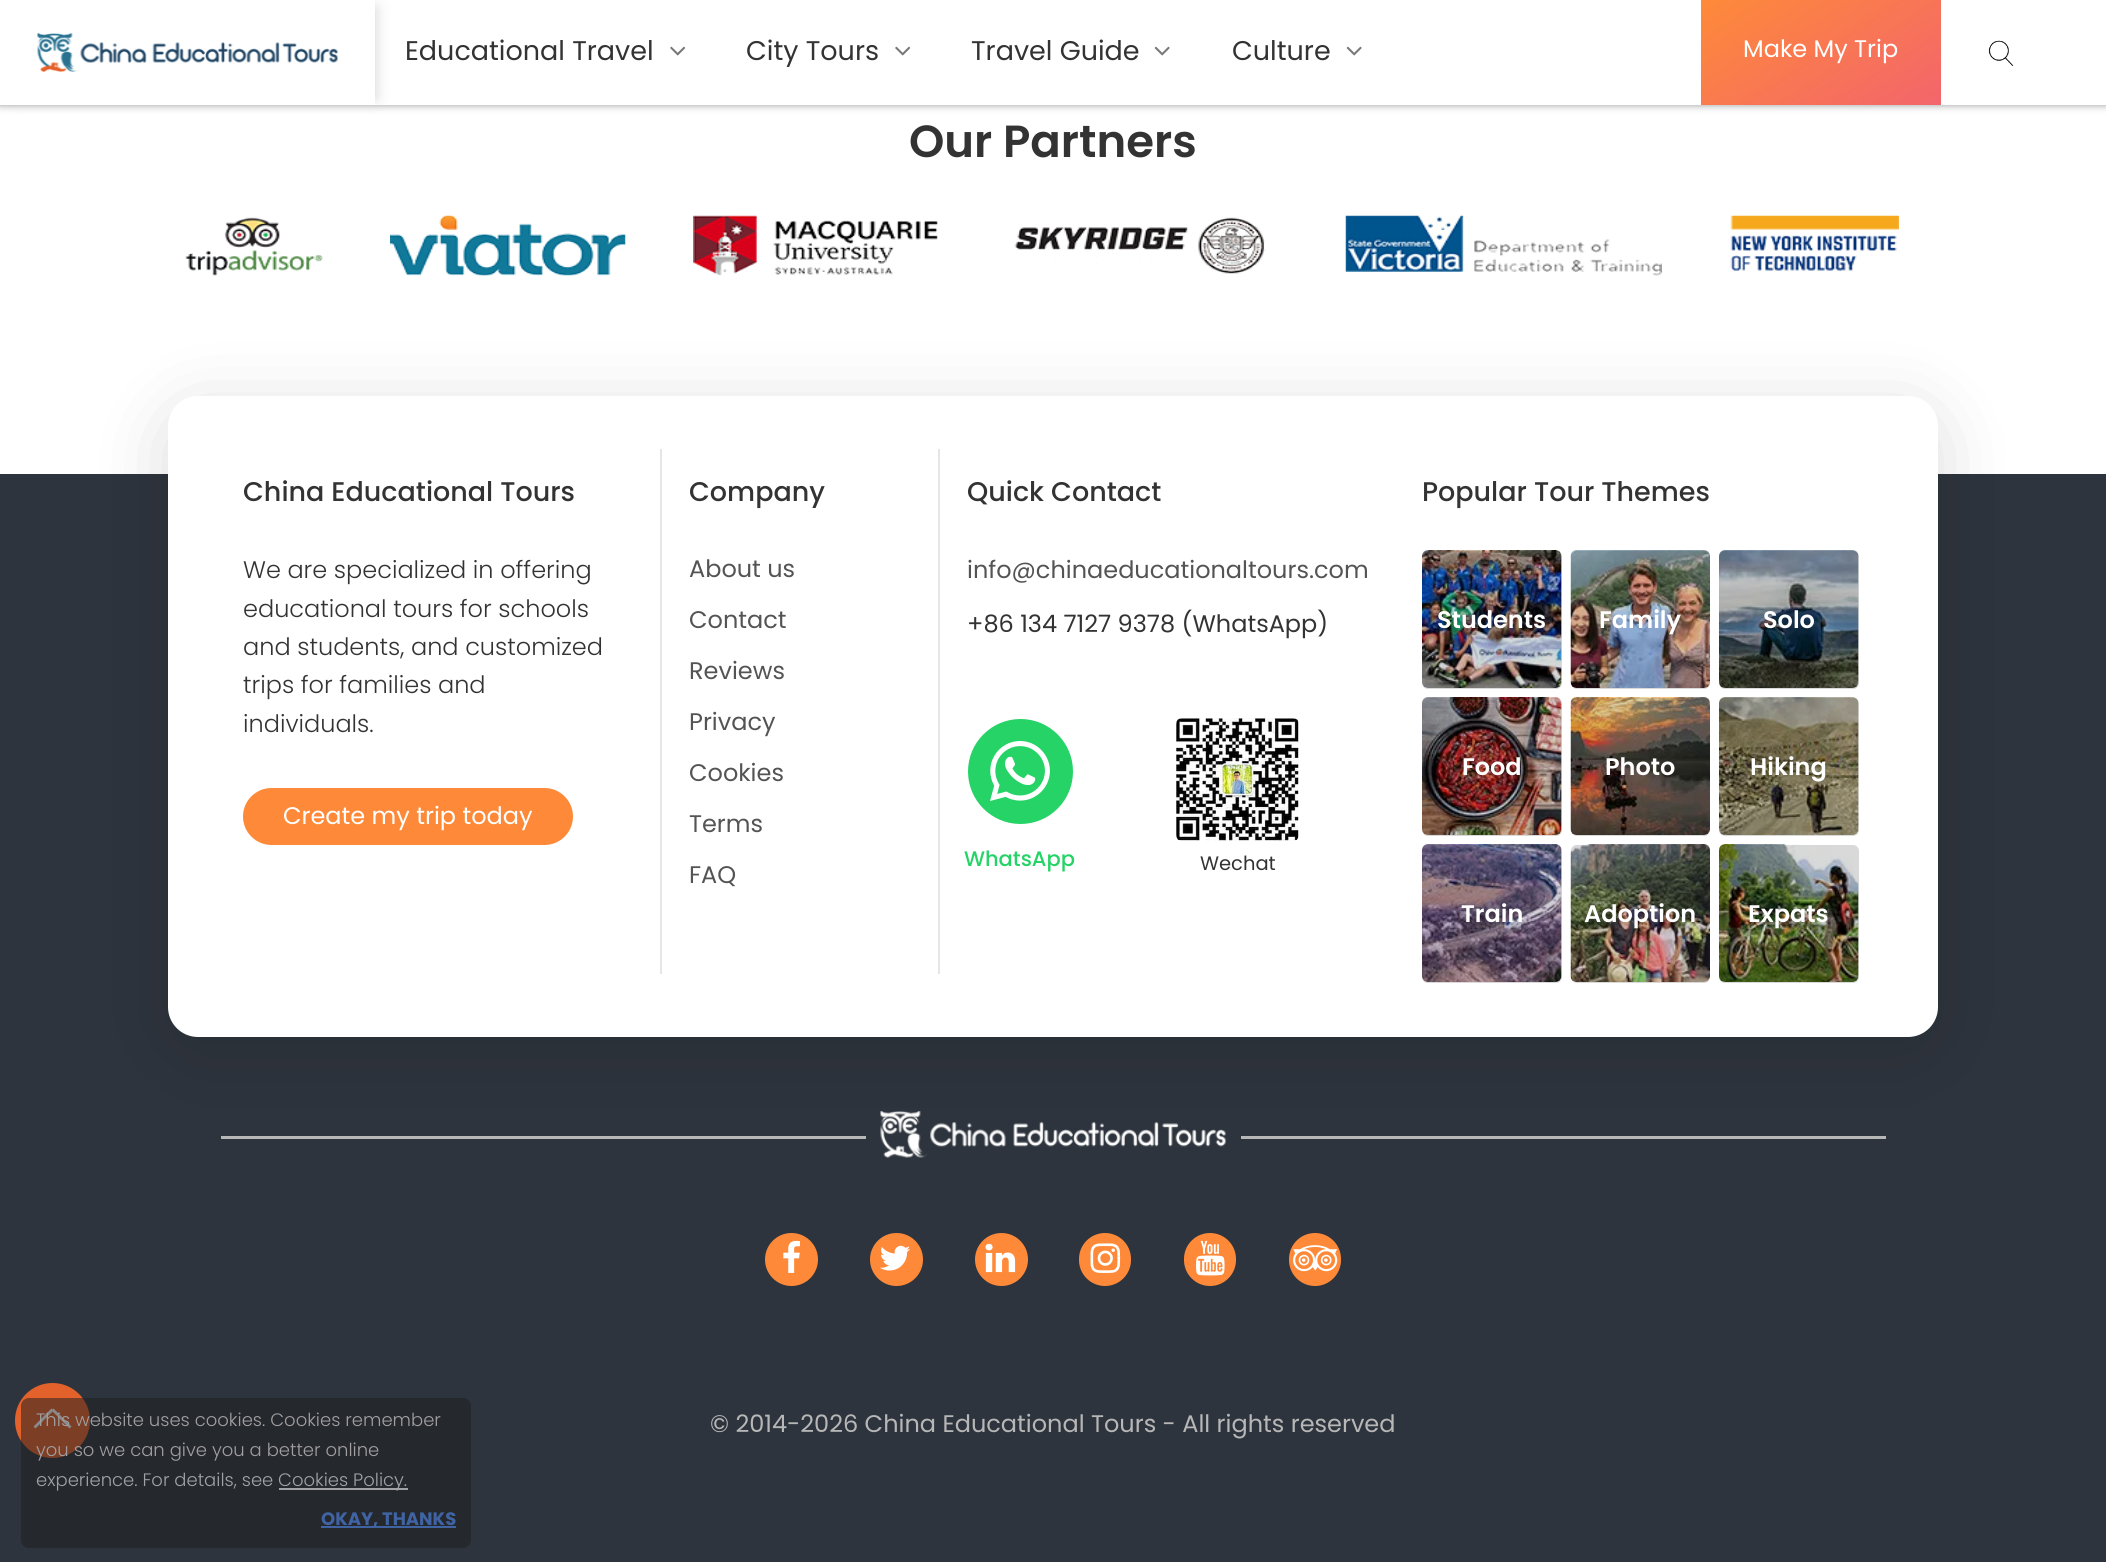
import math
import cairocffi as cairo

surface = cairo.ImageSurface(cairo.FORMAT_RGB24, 2106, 1562)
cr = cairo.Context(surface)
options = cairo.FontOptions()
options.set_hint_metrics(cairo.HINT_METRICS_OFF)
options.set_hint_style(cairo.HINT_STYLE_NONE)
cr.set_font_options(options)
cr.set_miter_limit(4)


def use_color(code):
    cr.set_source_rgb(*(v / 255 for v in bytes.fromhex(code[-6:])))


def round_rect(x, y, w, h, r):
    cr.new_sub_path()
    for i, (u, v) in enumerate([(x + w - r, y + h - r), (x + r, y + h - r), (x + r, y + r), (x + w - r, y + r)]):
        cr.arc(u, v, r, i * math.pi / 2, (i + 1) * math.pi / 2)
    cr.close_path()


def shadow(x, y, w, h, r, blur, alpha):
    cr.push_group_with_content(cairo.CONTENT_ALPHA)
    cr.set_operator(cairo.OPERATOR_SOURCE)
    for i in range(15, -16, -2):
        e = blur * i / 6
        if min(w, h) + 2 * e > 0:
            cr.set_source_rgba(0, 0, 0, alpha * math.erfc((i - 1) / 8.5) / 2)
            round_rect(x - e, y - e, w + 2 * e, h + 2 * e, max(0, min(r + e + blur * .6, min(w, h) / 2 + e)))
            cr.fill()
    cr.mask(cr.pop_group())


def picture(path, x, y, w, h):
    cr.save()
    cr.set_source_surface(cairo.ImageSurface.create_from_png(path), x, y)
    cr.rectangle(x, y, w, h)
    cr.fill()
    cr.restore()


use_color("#ffffff")
cr.paint()
use_color("#999999")
shadow(0, 0, 2106, 105, 0, 4, 1)
use_color("#d1d1d1")
cr.rectangle(0, 105, 2106, 1)
cr.fill()
use_color("#ffffff")
cr.rectangle(0, 0, 2106, 105)
cr.fill()
cr.save()
cr.set_fill_rule(cairo.FILL_RULE_EVEN_ODD)
cr.new_path()
cr.move_to(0, 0)
cr.line_to(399, 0)
cr.line_to(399, 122)
cr.line_to(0, 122)
cr.close_path()
cr.move_to(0, 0)
cr.line_to(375, 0)
cr.line_to(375, 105)
cr.line_to(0, 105)
cr.close_path()
cr.clip()
use_color("#d1d1d1")
shadow(15, 8, 360, 90, 0, 7.5, 1)
cr.restore()
picture("img1.png", 37, 33, 301, 39)
cr.select_font_face("Poppins")
cr.set_font_size(27)
use_color("#333333")
cr.move_to(405, 60)
cr.show_text("Educational Travel")
picture("img2.png", 670, 46, 16, 10)
cr.move_to(746, 60)
cr.show_text("City Tours")
picture("img2.png", 895, 46, 16, 10)
cr.move_to(971, 60)
cr.show_text("Travel Guide")
picture("img3.png", 1154, 46, 16, 10)
cr.move_to(1232, 60)
cr.show_text("Culture")
picture("img3.png", 1346, 46, 16, 10)
gradient = cairo.LinearGradient(1761, -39, 1881, 144)
gradient.add_color_stop_rgba(0, 0.996, 0.541, 0.224, 1)
gradient.add_color_stop_rgba(1, 0.953, 0.396, 0.424, 1)
cr.set_source(gradient)
cr.rectangle(1701, 0, 240, 105)
cr.fill()
cr.set_font_size(24)
use_color("#ffffff")
cr.move_to(1743, 57)
cr.show_text("Make My Trip")
picture("img4.png", 1988, 40, 26, 26)
use_color("#2e343d")
cr.rectangle(0, 474, 2106, 1088)
cr.fill()
use_color("#e3622b")
cr.arc(52.5, 1420.5, 37.5, 0, 2 * math.pi)
cr.fill()
use_color("#ffffff")
cr.new_path()
cr.move_to(53.5, 1408.5)
cr.line_to(71.5, 1426.5)
cr.line_to(69.5, 1428.5)
cr.line_to(51.5, 1410.5)
cr.close_path()
cr.fill()
cr.new_path()
cr.move_to(51.5, 1408.5)
cr.line_to(53.5, 1410.5)
cr.line_to(35.5, 1428.5)
cr.line_to(33.5, 1426.5)
cr.close_path()
cr.fill()
cr.select_font_face("Poppins SemiBold")
cr.set_font_size(45)
use_color("#333333")
cr.move_to(909, 157)
cr.show_text("Our Partners")
picture("img5.png", 185, 217, 138, 59)
picture("img6.png", 390, 215, 236, 61)
picture("img7.png", 693, 215, 245, 61)
picture("img8.png", 1014, 217, 252, 57)
picture("img9.png", 1345, 215, 317, 61)
picture("img10.png", 1730, 215, 169, 56)
use_color("#b7b7b7")
cr.rectangle(221, 1136, 1665, 3)
cr.fill()
use_color("#000000")
shadow(168, 411, 1770, 641, 30, 37.5, 0.14)
use_color("#ffffff")
round_rect(168, 396, 1770, 641, 30)
cr.fill()
cr.select_font_face("Poppins Medium")
cr.set_font_size(27)
use_color("#333333")
cr.move_to(243, 501)
cr.show_text("China Educational Tours")
cr.select_font_face("Poppins Light")
cr.set_font_size(24)
cr.move_to(243, 578)
cr.show_text("We are specialized in offering")
cr.move_to(243, 617)
cr.show_text("educational tours for schools")
cr.move_to(243, 655)
cr.show_text("and students, and customized")
cr.move_to(243, 693)
cr.show_text("trips for families and")
cr.move_to(243, 732)
cr.show_text("individuals.")
use_color("#fe8a39")
round_rect(243, 788, 330, 57, 28.5)
cr.fill()
cr.select_font_face("Poppins")
use_color("#ffffff")
cr.move_to(283, 824)
cr.show_text("Create my trip today")
use_color("#e6e6e6")
cr.rectangle(660, 449, 2, 525)
cr.fill()
cr.select_font_face("Poppins Medium")
cr.set_font_size(27)
use_color("#333333")
cr.move_to(689, 501)
cr.show_text("Company")
cr.select_font_face("Poppins")
cr.set_font_size(24)
use_color("#545454")
cr.move_to(689, 577)
cr.show_text("About us")
cr.move_to(689, 628)
cr.show_text("Contact")
cr.move_to(689, 679)
cr.show_text("Reviews")
cr.move_to(689, 730)
cr.show_text("Privacy")
cr.move_to(689, 781)
cr.show_text("Cookies")
cr.move_to(689, 832)
cr.show_text("Terms")
cr.move_to(689, 883)
cr.show_text("FAQ")
use_color("#e6e6e6")
cr.rectangle(938, 449, 2, 525)
cr.fill()
cr.select_font_face("Poppins Medium")
cr.set_font_size(27)
use_color("#333333")
cr.move_to(967, 501)
cr.show_text("Quick Contact")
cr.select_font_face("Poppins")
cr.set_font_size(24)
use_color("#545454")
cr.move_to(967, 578)
cr.show_text("info@chinaeducationaltours.com")
use_color("#333333")
cr.move_to(967, 632)
cr.show_text("+86 134 7127 9378 (WhatsApp)")
use_color("#25d366")
cr.new_path()
cr.arc(1020.5, 771.5, 52.5, 0, 2 * math.pi)
cr.fill()
picture("img11.png", 990, 741, 60, 60)
cr.select_font_face("Poppins Medium")
cr.set_font_size(21)
cr.move_to(964, 866)
cr.show_text("WhatsApp")
picture("img12.png", 1176, 718, 123, 123)
cr.select_font_face("Poppins")
cr.set_font_size(19.5)
use_color("#333333")
cr.move_to(1200, 870)
cr.show_text("Wechat")
cr.select_font_face("Poppins Medium")
cr.set_font_size(27)
cr.move_to(1422, 501)
cr.show_text("Popular Tour Themes")
picture("img13.png", 1422, 550, 140, 138)
cr.set_source_rgba(0, 0, 0, 0.15)
round_rect(1422, 551, 140, 138, 6)
cr.fill()
cr.select_font_face("Poppins SemiBold")
cr.set_font_size(24)
use_color("#ffffff")
cr.move_to(1437, 628)
cr.show_text("Students")
picture("img14.png", 1570, 550, 140, 138)
cr.set_source_rgba(0, 0, 0, 0.15)
round_rect(1571, 551, 139, 138, 6)
cr.fill()
use_color("#ffffff")
cr.move_to(1599, 628)
cr.show_text("Family")
picture("img15.png", 1719, 550, 140, 138)
cr.set_source_rgba(0, 0, 0, 0.15)
round_rect(1719, 551, 140, 138, 6)
cr.fill()
use_color("#ffffff")
cr.move_to(1763, 628)
cr.show_text("Solo")
picture("img16.png", 1422, 697, 140, 138)
cr.set_source_rgba(0, 0, 0, 0.15)
round_rect(1422, 698, 140, 138, 6)
cr.fill()
use_color("#ffffff")
cr.move_to(1462, 775)
cr.show_text("Food")
picture("img17.png", 1570, 697, 140, 138)
cr.set_source_rgba(0, 0, 0, 0.15)
round_rect(1571, 698, 139, 138, 6)
cr.fill()
use_color("#ffffff")
cr.move_to(1605, 775)
cr.show_text("Photo")
picture("img18.png", 1719, 697, 140, 138)
cr.set_source_rgba(0, 0, 0, 0.15)
round_rect(1719, 698, 140, 138, 6)
cr.fill()
use_color("#ffffff")
cr.move_to(1750, 775)
cr.show_text("Hiking")
picture("img19.png", 1422, 844, 140, 138)
cr.set_source_rgba(0, 0, 0, 0.15)
round_rect(1422, 845, 140, 138, 6)
cr.fill()
use_color("#ffffff")
cr.move_to(1461, 922)
cr.show_text("Train")
picture("img20.png", 1570, 844, 140, 138)
cr.set_source_rgba(0, 0, 0, 0.15)
round_rect(1571, 845, 139, 138, 6)
cr.fill()
use_color("#ffffff")
cr.move_to(1584, 922)
cr.show_text("Adoption")
picture("img21.png", 1719, 844, 140, 138)
cr.set_source_rgba(0, 0, 0, 0.15)
round_rect(1719, 845, 140, 138, 6)
cr.fill()
use_color("#ffffff")
cr.move_to(1748, 922)
cr.show_text("Expats")
use_color("#2e343d")
cr.rectangle(866, 1136, 375, 3)
cr.fill()
picture("img22.png", 880, 1111, 346, 47)
use_color("#fe8a39")
cr.arc(791.5, 1259.5, 26.5, 0, 2 * math.pi)
cr.fill()
picture("img23.png", 783, 1240, 17, 33)
cr.arc(896.5, 1259.5, 26.5, 0, 2 * math.pi)
cr.fill()
picture("img24.png", 880, 1245, 30, 26)
cr.arc(1001.5, 1259.5, 26.5, 0, 2 * math.pi)
cr.fill()
picture("img25.png", 985, 1243, 31, 30)
round_rect(1079, 1233, 52, 53, 26)
cr.fill()
picture("img26.png", 1090, 1243, 31, 30)
round_rect(1184, 1233, 52, 53, 26)
cr.fill()
picture("img27.png", 1196, 1240, 29, 36)
round_rect(1289, 1233, 52, 53, 26)
cr.fill()
picture("img28.png", 1293, 1245, 45, 27)
cr.select_font_face("Poppins")
use_color("#b7b7b7")
cr.move_to(710, 1432)
cr.show_text("© 2014-2026 China Educational Tours - All rights reserved")
cr.set_source_rgba(0.114, 0.118, 0.122, 0.52)
round_rect(21, 1398, 450, 150, 8)
cr.fill()
cr.select_font_face("Poppins Light")
cr.set_font_size(18)
use_color("#a19fa0")
cr.move_to(36, 1426)
cr.show_text("This website uses cookies. Cookies remember")
cr.move_to(36, 1456)
cr.show_text("you so we can give you a better online")
use_color("#a0a2a6")
cr.move_to(36, 1486)
cr.show_text("experience. For details, see")
cr.rectangle(279, 1488, 129, 2)
cr.fill()
cr.move_to(278, 1486)
cr.show_text("Cookies Policy.")
use_color("#4064a3")
cr.rectangle(321, 1526, 135, 2)
cr.fill()
cr.select_font_face("Poppins", cairo.FONT_SLANT_NORMAL, cairo.FONT_WEIGHT_BOLD)
cr.move_to(321, 1525)
cr.show_text("OKAY, THANKS")
surface.write_to_png("result.png")
